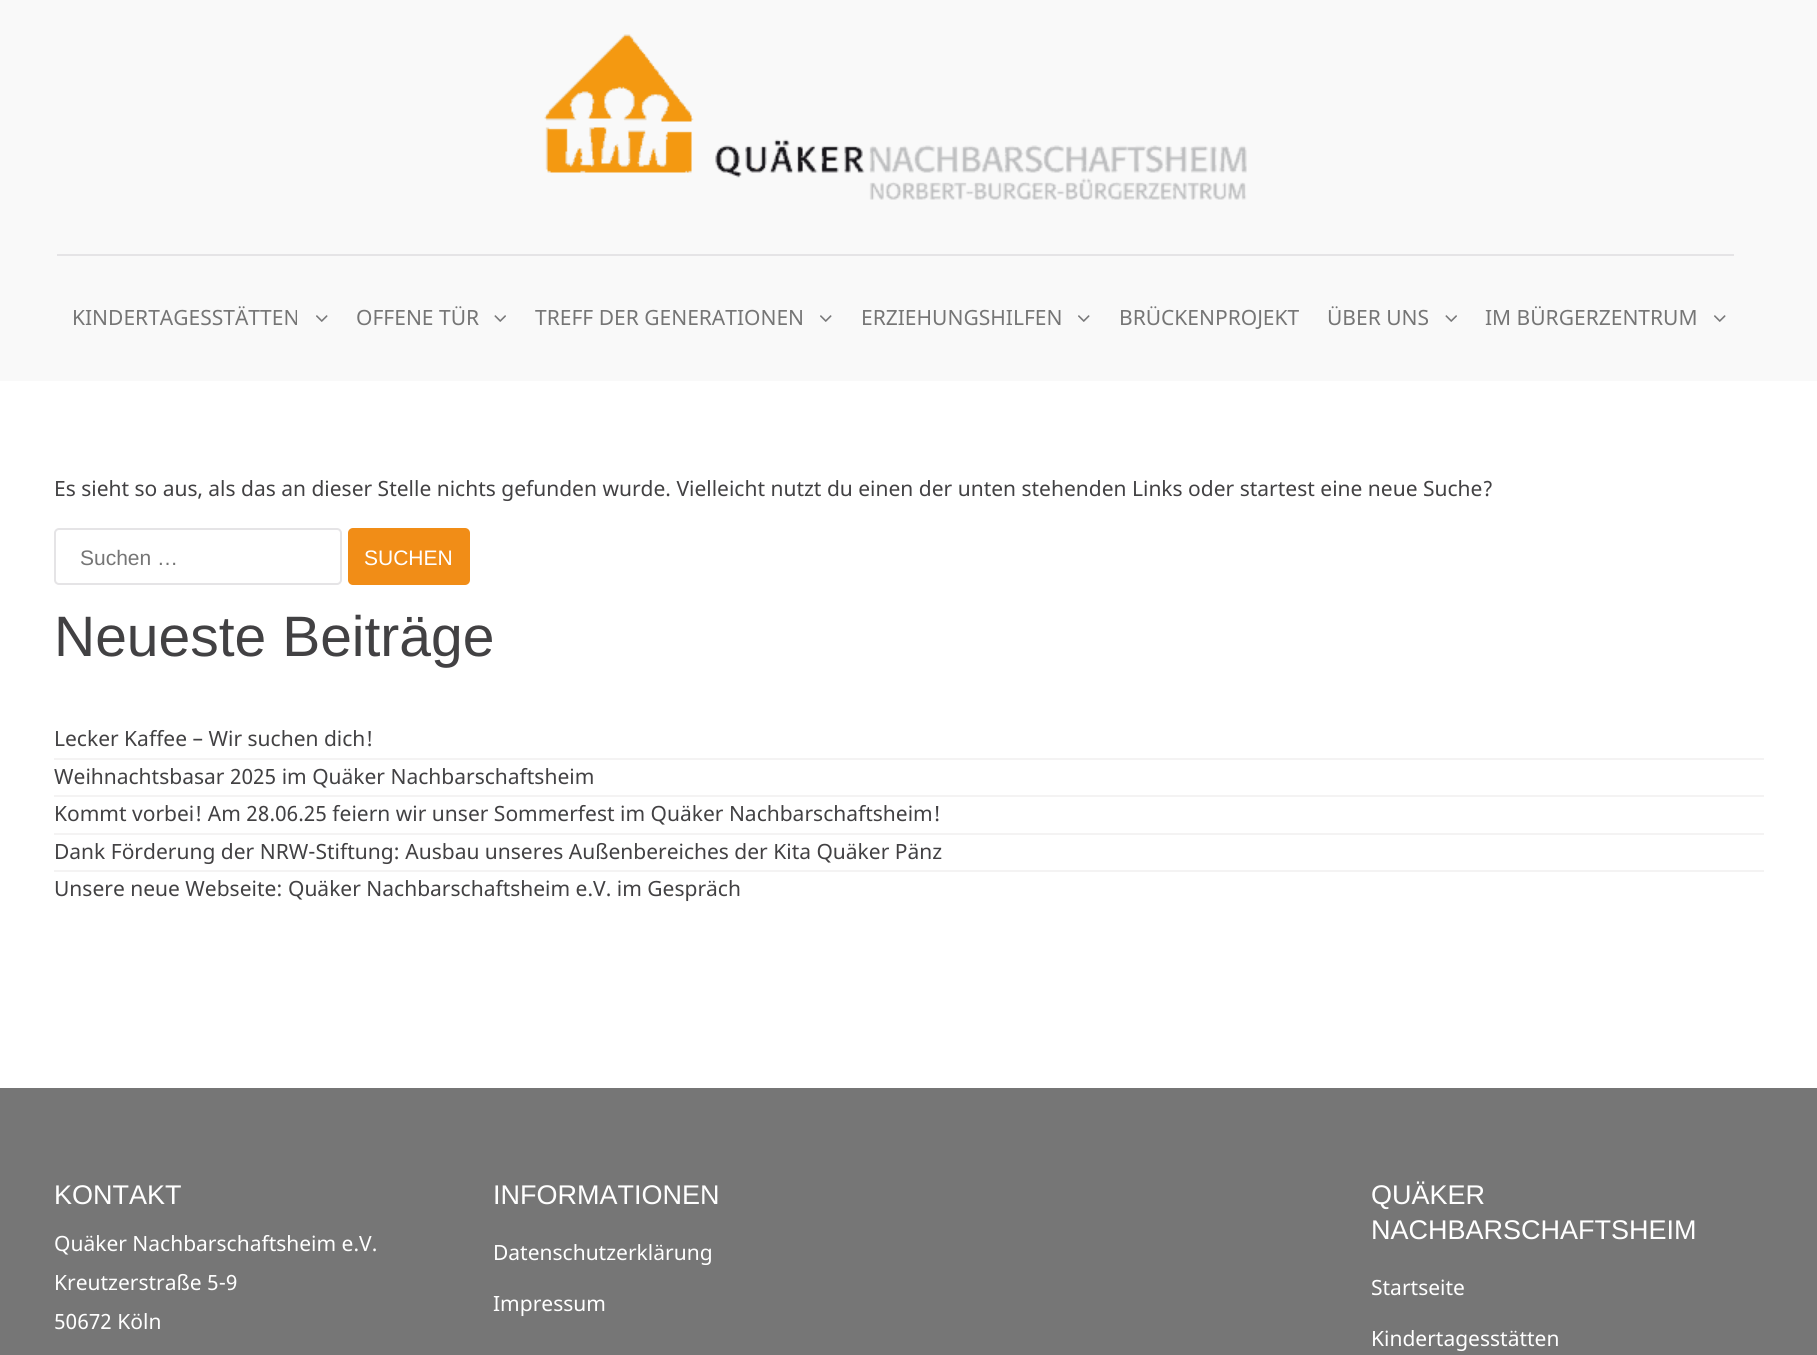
import math
import cairocffi as cairo

surface = cairo.ImageSurface(cairo.FORMAT_RGB24, 1817, 1355)
cr = cairo.Context(surface)
options = cairo.FontOptions()
options.set_hint_metrics(cairo.HINT_METRICS_OFF)
options.set_hint_style(cairo.HINT_STYLE_NONE)
cr.set_font_options(options)
cr.set_miter_limit(4)


def use_color(code):
    cr.set_source_rgb(*(v / 255 for v in bytes.fromhex(code[-6:])))


def round_rect(x, y, w, h, r):
    cr.new_sub_path()
    for i, (u, v) in enumerate([(x + w - r, y + h - r), (x + r, y + h - r), (x + r, y + r), (x + w - r, y + r)]):
        cr.arc(u, v, r, i * math.pi / 2, (i + 1) * math.pi / 2)
    cr.close_path()


def picture(path, x, y, w, h):
    cr.save()
    cr.set_source_surface(cairo.ImageSurface.create_from_png(path), x, y)
    cr.rectangle(x, y, w, h)
    cr.fill()
    cr.restore()


use_color("#ffffff")
cr.paint()
use_color("#f9f9f9")
cr.rectangle(0, 0, 1817, 381)
cr.fill()
picture("img1.png", 544, 34, 703, 166)
use_color("#e5e4e6")
cr.rectangle(57, 254, 1677, 2)
cr.fill()
cr.select_font_face("Noto Sans")
cr.set_font_size(21)
use_color("#757575")
cr.move_to(72, 325)
cr.show_text("KINDERTAGESSTÄTTEN")
picture("img2.png", 316, 315, 12, 7)
cr.move_to(356, 325)
cr.show_text("OFFENE TÜR")
picture("img3.png", 494, 315, 12, 7)
cr.move_to(535, 325)
cr.show_text("TREFF DER GENERATIONEN")
picture("img2.png", 820, 315, 12, 7)
cr.move_to(861, 325)
cr.show_text("ERZIEHUNGSHILFEN")
picture("img2.png", 1078, 315, 12, 7)
cr.move_to(1119, 325)
cr.show_text("BRÜCKENPROJEKT")
cr.move_to(1327, 325)
cr.show_text("ÜBER UNS")
picture("img3.png", 1445, 315, 12, 7)
cr.move_to(1485, 325)
cr.show_text("IM BÜRGERZENTRUM")
picture("img2.png", 1714, 315, 12, 7)
use_color("#424143")
cr.move_to(54, 496)
cr.show_text("Es sieht so aus, als das an dieser Stelle nichts gefunden wurde. Vielleicht nutzt du einen der unten stehenden Links oder startest eine neue Suche?")
round_rect(55, 529, 286, 55, 4)
use_color("#e5e4e6")
cr.stroke()
cr.select_font_face("Liberation Sans")
use_color("#757575")
cr.move_to(80, 565)
cr.show_text("Suchen …")
use_color("#f18d17")
round_rect(348, 528, 122, 57, 5)
cr.fill()
use_color("#ffffff")
cr.move_to(364, 565)
cr.show_text("SUCHEN")
cr.set_font_size(57)
use_color("#424143")
cr.move_to(54, 656)
cr.show_text("Neueste Beiträge")
use_color("#f4f3f3")
cr.rectangle(54, 758, 1710, 2)
cr.fill()
cr.select_font_face("Noto Sans")
cr.set_font_size(21)
use_color("#424143")
cr.move_to(54, 746)
cr.show_text("Lecker Kaffee – Wir suchen dich!")
use_color("#f4f3f3")
cr.rectangle(54, 795, 1710, 2)
cr.fill()
use_color("#424143")
cr.move_to(54, 784)
cr.show_text("Weihnachtsbasar 2025 im Quäker Nachbarschaftsheim")
use_color("#f4f3f3")
cr.rectangle(54, 833, 1710, 2)
cr.fill()
use_color("#424143")
cr.move_to(54, 821)
cr.show_text("Kommt vorbei! Am 28.06.25 feiern wir unser Sommerfest im Quäker Nachbarschaftsheim!")
use_color("#f4f3f3")
cr.rectangle(54, 870, 1710, 2)
cr.fill()
use_color("#424143")
cr.move_to(54, 859)
cr.show_text("Dank Förderung der NRW-Stiftung: Ausbau unseres Außenbereiches der Kita Quäker Pänz")
cr.move_to(54, 896)
cr.show_text("Unsere neue Webseite: Quäker Nachbarschaftsheim e.V. im Gespräch")
use_color("#767676")
cr.rectangle(0, 1088, 1817, 267)
cr.fill()
cr.select_font_face("Liberation Sans")
cr.set_font_size(27)
use_color("#ffffff")
cr.move_to(54, 1204)
cr.show_text("KONTAKT")
cr.select_font_face("Noto Sans")
cr.set_font_size(21)
cr.move_to(54, 1251)
cr.show_text("Quäker Nachbarschaftsheim e.V.")
cr.move_to(54, 1290)
cr.show_text("Kreutzerstraße 5-9")
cr.move_to(54, 1329)
cr.show_text("50672 Köln")
cr.select_font_face("Liberation Sans")
cr.set_font_size(27)
cr.move_to(493, 1204)
cr.show_text("INFORMATIONEN")
cr.select_font_face("Noto Sans")
cr.set_font_size(21)
cr.move_to(493, 1260)
cr.show_text("Datenschutzerklärung")
cr.move_to(493, 1311)
cr.show_text("Impressum")
cr.select_font_face("Liberation Sans")
cr.set_font_size(27)
cr.move_to(1371, 1204)
cr.show_text("QUÄKER")
cr.move_to(1371, 1239)
cr.show_text("NACHBARSCHAFTSHEIM")
cr.select_font_face("Noto Sans")
cr.set_font_size(21)
cr.move_to(1371, 1295)
cr.show_text("Startseite")
cr.move_to(1371, 1346)
cr.show_text("Kindertagesstätten")
surface.write_to_png("result.png")
